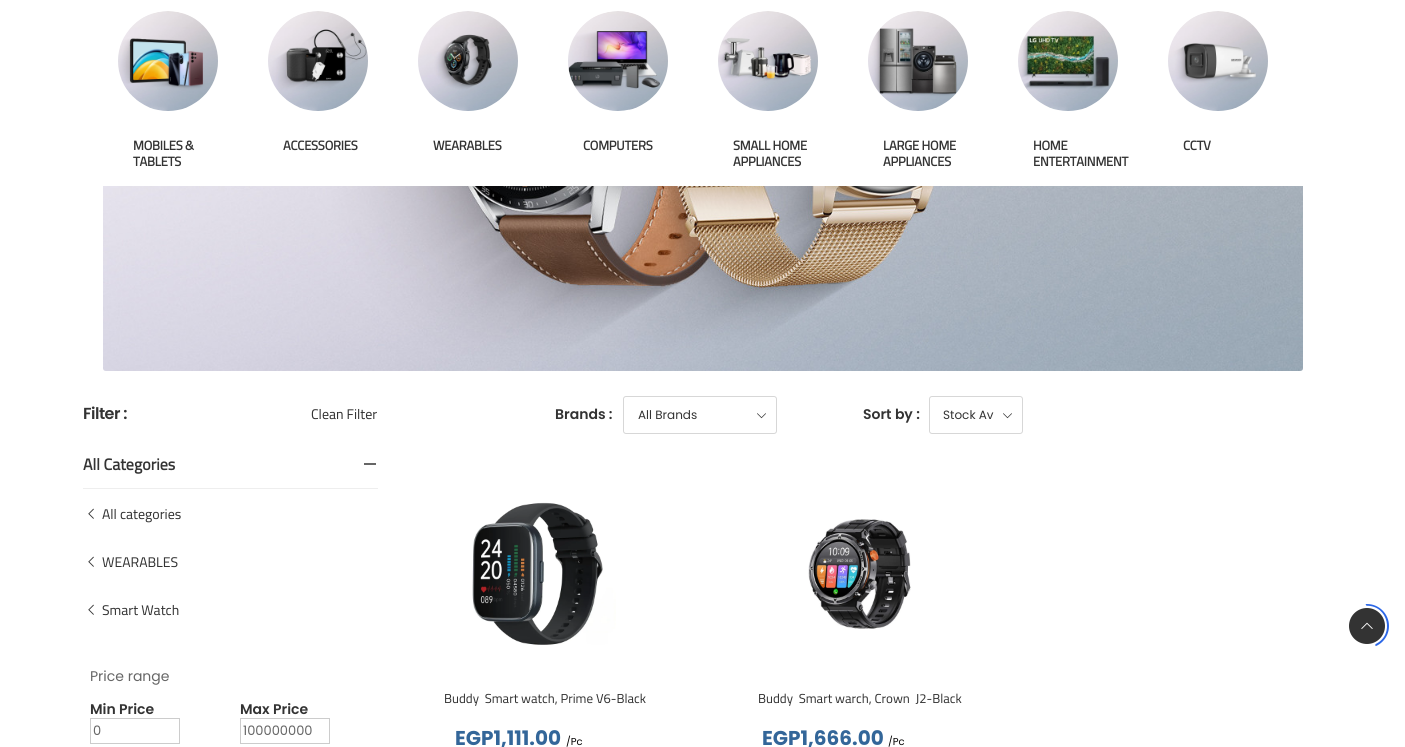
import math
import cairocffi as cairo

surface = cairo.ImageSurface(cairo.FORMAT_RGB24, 1405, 747)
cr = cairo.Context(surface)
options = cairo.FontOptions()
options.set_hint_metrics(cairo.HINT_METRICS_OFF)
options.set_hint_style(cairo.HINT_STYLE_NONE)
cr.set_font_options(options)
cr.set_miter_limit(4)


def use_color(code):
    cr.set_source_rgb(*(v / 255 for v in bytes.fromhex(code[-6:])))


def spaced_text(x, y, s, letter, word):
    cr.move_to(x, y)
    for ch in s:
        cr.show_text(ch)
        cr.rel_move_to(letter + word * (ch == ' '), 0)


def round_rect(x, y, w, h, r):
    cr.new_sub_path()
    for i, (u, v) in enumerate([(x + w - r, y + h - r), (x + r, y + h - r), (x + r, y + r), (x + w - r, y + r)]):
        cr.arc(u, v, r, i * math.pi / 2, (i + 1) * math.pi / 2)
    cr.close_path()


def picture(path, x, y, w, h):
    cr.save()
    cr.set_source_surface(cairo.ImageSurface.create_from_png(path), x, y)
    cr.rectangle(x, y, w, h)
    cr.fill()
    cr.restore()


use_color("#ffffff")
cr.paint()
picture("img1.png", 118, 11, 100, 100)
cr.select_font_face("Cairo", cairo.FONT_SLANT_NORMAL, cairo.FONT_WEIGHT_BOLD)
cr.set_font_size(13)
use_color("#333333")
spaced_text(133, 150, "MOBILES &", -0.25, 0)
spaced_text(133, 166, "TABLETS", -0.25, 0)
picture("img2.png", 268, 11, 100, 100)
spaced_text(283, 150, "ACCESSORIES", -0.25, 0)
picture("img3.png", 418, 11, 100, 100)
spaced_text(433, 150, "WEARABLES", -0.25, 0)
picture("img4.png", 568, 11, 100, 100)
spaced_text(583, 150, "COMPUTERS", -0.25, 0)
picture("img5.png", 718, 11, 100, 100)
spaced_text(733, 150, "SMALL HOME", -0.25, 0)
spaced_text(733, 166, "APPLIANCES", -0.25, 0)
picture("img6.png", 868, 11, 100, 100)
spaced_text(883, 150, "LARGE HOME", -0.25, 0)
spaced_text(883, 166, "APPLIANCES", -0.25, 0)
picture("img7.png", 1018, 11, 100, 100)
spaced_text(1033, 150, "HOME", -0.25, 0)
spaced_text(1033, 166, "ENTERTAINMENT", -0.25, 0)
picture("img8.png", 1168, 11, 100, 100)
spaced_text(1183, 150, "CCTV", -0.25, 0)
picture("img9.png", 103, 186, 1200, 185)
cr.select_font_face("Poppins SemiBold")
cr.set_font_size(16)
spaced_text(83, 419, "Filter :", -0.5, 0)
cr.select_font_face("Cairo")
cr.set_font_size(14)
cr.move_to(311, 419)
cr.show_text("Clean Filter")
use_color("#eeeeee")
cr.rectangle(83, 488, 295, 1)
cr.fill()
cr.select_font_face("Cairo", cairo.FONT_SLANT_NORMAL, cairo.FONT_WEIGHT_BOLD)
cr.set_font_size(16)
use_color("#333333")
cr.move_to(83, 470)
cr.show_text("All Categories")
use_color("#666666")
cr.rectangle(364, 463, 12, 2)
cr.fill()
picture("img10.png", 88, 508, 6, 11)
cr.select_font_face("Cairo")
cr.set_font_size(14)
use_color("#333333")
cr.move_to(102, 519)
cr.show_text("All categories")
picture("img10.png", 88, 556, 6, 11)
cr.move_to(102, 567)
cr.show_text("WEARABLES")
picture("img10.png", 88, 604, 6, 11)
cr.move_to(102, 615)
cr.show_text("Smart Watch")
cr.select_font_face("Poppins")
use_color("#666666")
cr.move_to(90, 681)
cr.show_text("Price range")
cr.select_font_face("Poppins SemiBold")
use_color("#333333")
cr.move_to(90, 714)
cr.show_text("Min Price")
cr.rectangle(90.5, 718.5, 89, 25)
use_color("#cccccc")
cr.set_line_width(1)
cr.stroke()
cr.select_font_face("Poppins")
cr.set_font_size(13)
use_color("#666666")
cr.move_to(93, 735)
cr.show_text("0")
cr.select_font_face("Poppins SemiBold")
cr.set_font_size(14)
use_color("#333333")
cr.move_to(240, 714)
cr.show_text("Max Price")
cr.rectangle(240.5, 718.5, 89, 25)
use_color("#cccccc")
cr.stroke()
cr.select_font_face("Poppins")
cr.set_font_size(13)
use_color("#666666")
cr.move_to(243, 735)
cr.show_text("100000000")
cr.select_font_face("Poppins SemiBold")
cr.set_font_size(14)
use_color("#333333")
cr.move_to(555, 419)
cr.show_text("Brands :")
picture("img11.png", 757, 413, 9, 6)
round_rect(623.5, 396.5, 153, 37, 2.5)
use_color("#d7d7d7")
cr.stroke()
cr.select_font_face("Poppins")
cr.set_font_size(12)
use_color("#333333")
cr.move_to(638, 419)
cr.show_text("All Brands")
cr.select_font_face("Poppins SemiBold")
cr.set_font_size(14)
cr.move_to(863, 419)
cr.show_text("Sort by :")
picture("img11.png", 1003, 413, 9, 6)
round_rect(929.5, 396.5, 93, 37, 2.5)
use_color("#d7d7d7")
cr.stroke()
cr.select_font_face("Poppins")
cr.set_font_size(12)
use_color("#333333")
cr.move_to(943, 419)
cr.show_text("Stock Av")
picture("img12.png", 472, 502, 144, 143)
cr.select_font_face("Cairo")
cr.set_font_size(13)
cr.move_to(444, 703)
cr.show_text("Buddy  Smart watch, Prime V6-Black")
cr.select_font_face("Poppins", cairo.FONT_SLANT_NORMAL, cairo.FONT_WEIGHT_BOLD)
cr.set_font_size(20)
use_color("#336699")
cr.move_to(455, 745)
cr.show_text("EGP1,111.00")
cr.select_font_face("Poppins")
cr.set_font_size(10)
use_color("#020101")
cr.move_to(566, 745)
cr.show_text("/Pc")
picture("img13.png", 808, 519, 103, 110)
cr.select_font_face("Cairo")
cr.set_font_size(13)
use_color("#333333")
cr.move_to(758, 703)
cr.show_text("Buddy  Smart warch, Crown  J2-Black")
cr.select_font_face("Poppins", cairo.FONT_SLANT_NORMAL, cairo.FONT_WEIGHT_BOLD)
cr.set_font_size(20)
use_color("#336699")
cr.move_to(762, 745)
cr.show_text("EGP1,666.00")
cr.select_font_face("Poppins")
cr.set_font_size(10)
use_color("#020101")
cr.move_to(888, 745)
cr.show_text("/Pc")
cr.save()
round_rect(1345, 604, 44, 44, 22)
cr.clip()
cr.new_path()
cr.move_to(1367, 604.5)
cr.curve_to(1389.5, 604.5, 1396.5, 635, 1376.5, 645)
use_color("#2c67e7")
cr.set_line_width(2.5)
cr.set_line_cap(cairo.LINE_CAP_ROUND)
cr.stroke()
cr.restore()
use_color("#333333")
cr.arc(1367, 626, 17, 0, 2 * math.pi)
cr.fill_preserve()
cr.set_line_width(2)
cr.stroke()
picture("img14.png", 1361, 622, 12, 7)
surface.write_to_png("result.png")
